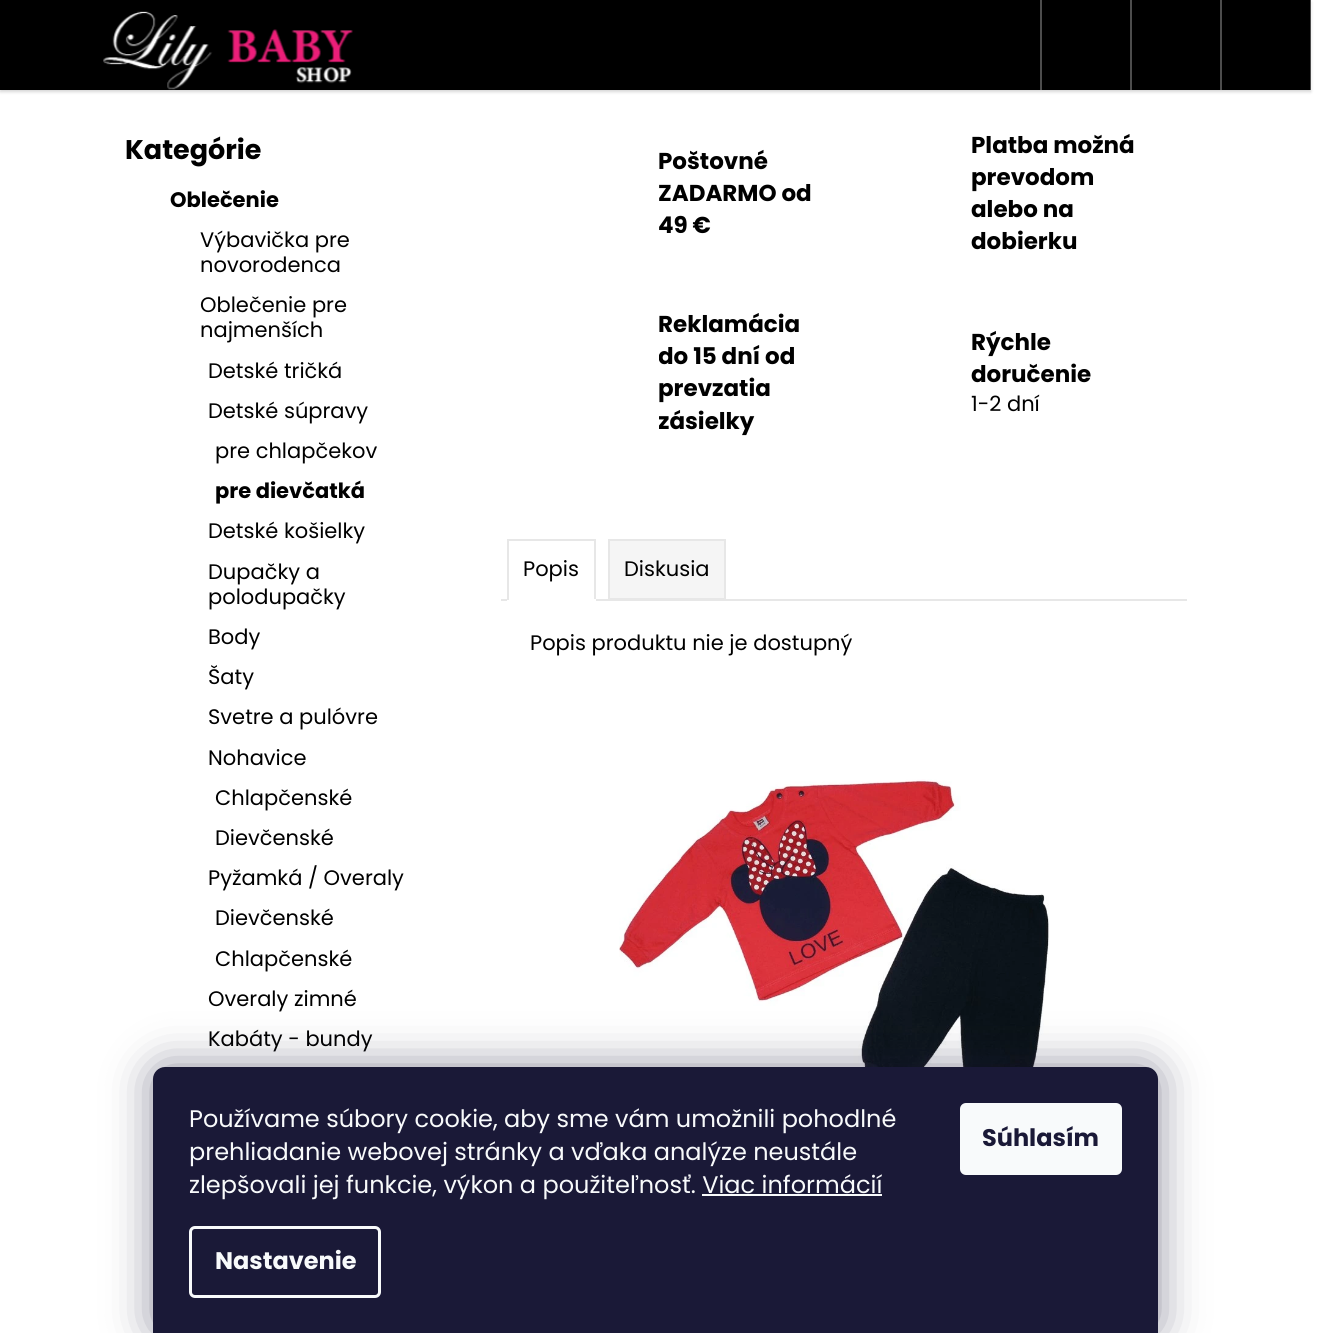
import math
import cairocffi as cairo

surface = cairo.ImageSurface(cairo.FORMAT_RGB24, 1333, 1333)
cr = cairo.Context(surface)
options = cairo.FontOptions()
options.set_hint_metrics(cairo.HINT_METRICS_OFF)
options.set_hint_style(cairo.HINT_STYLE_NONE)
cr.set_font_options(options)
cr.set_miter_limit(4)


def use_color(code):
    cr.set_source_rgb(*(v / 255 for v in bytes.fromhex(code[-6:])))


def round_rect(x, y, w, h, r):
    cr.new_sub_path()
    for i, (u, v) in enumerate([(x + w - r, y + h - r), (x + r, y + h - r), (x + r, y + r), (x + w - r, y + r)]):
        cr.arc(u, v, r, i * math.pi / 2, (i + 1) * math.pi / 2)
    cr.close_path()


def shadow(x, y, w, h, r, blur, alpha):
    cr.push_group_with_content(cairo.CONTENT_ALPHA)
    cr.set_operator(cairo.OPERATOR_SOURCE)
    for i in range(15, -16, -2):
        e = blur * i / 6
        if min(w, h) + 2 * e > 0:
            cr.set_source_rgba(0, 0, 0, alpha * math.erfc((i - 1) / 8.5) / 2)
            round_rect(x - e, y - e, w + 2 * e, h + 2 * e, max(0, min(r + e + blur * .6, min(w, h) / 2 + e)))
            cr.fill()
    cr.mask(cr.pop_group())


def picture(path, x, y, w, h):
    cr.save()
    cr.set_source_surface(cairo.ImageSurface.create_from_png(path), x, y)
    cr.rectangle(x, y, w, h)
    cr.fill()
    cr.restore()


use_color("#ffffff")
cr.paint()
use_color("#000000")
shadow(0, 2, 1311, 90, 0, 1.5, 0.16)
use_color("#000000")
cr.rectangle(0, 0, 1311, 90)
cr.fill()
picture("img1.png", 103, 11, 250, 79)
cr.set_source_rgba(1, 1, 1, 0.3)
cr.rectangle(1310, 0, 2, 90)
cr.fill()
use_color("#4d4d4d")
cr.rectangle(1040, 0, 2, 90)
cr.fill()
cr.rectangle(1130, 0, 2, 90)
cr.fill()
cr.rectangle(1220, 0, 2, 90)
cr.fill()
cr.select_font_face("Poppins", cairo.FONT_SLANT_NORMAL, cairo.FONT_WEIGHT_BOLD)
cr.set_font_size(27)
use_color("#000000")
cr.move_to(125, 159)
cr.show_text("Kategórie")
cr.set_font_size(21)
cr.move_to(170, 207)
cr.show_text("Oblečenie")
cr.select_font_face("Poppins")
cr.move_to(200, 247)
cr.show_text("Výbavička pre")
cr.move_to(200, 272)
cr.show_text("novorodenca")
cr.move_to(200, 312)
cr.show_text("Oblečenie pre")
cr.move_to(200, 337)
cr.show_text("najmenších")
cr.move_to(208, 378)
cr.show_text("Detské tričká")
cr.move_to(208, 418)
cr.show_text("Detské súpravy")
cr.move_to(215, 458)
cr.show_text("pre chlapčekov")
cr.select_font_face("Poppins", cairo.FONT_SLANT_NORMAL, cairo.FONT_WEIGHT_BOLD)
cr.move_to(215, 498)
cr.show_text("pre dievčatká")
cr.select_font_face("Poppins")
cr.move_to(208, 538)
cr.show_text("Detské košielky")
cr.move_to(208, 579)
cr.show_text("Dupačky a")
cr.move_to(208, 604)
cr.show_text("polodupačky")
cr.move_to(208, 644)
cr.show_text("Body")
cr.move_to(208, 684)
cr.show_text("Šaty")
cr.move_to(208, 724)
cr.show_text("Svetre a pulóvre")
cr.move_to(208, 765)
cr.show_text("Nohavice")
cr.move_to(215, 805)
cr.show_text("Chlapčenské")
cr.move_to(215, 845)
cr.show_text("Dievčenské")
cr.move_to(208, 885)
cr.show_text("Pyžamká / Overaly")
cr.move_to(215, 925)
cr.show_text("Dievčenské")
cr.move_to(215, 966)
cr.show_text("Chlapčenské")
cr.move_to(208, 1006)
cr.show_text("Overaly zimné")
cr.move_to(208, 1046)
cr.show_text("Kabáty - bundy")
cr.select_font_face("Poppins", cairo.FONT_SLANT_NORMAL, cairo.FONT_WEIGHT_BOLD)
cr.set_font_size(23)
cr.move_to(658, 169)
cr.show_text("Poštovné")
cr.save()
cr.rectangle(659, 144, 184, 98)
cr.clip()
cr.move_to(658, 201)
cr.show_text("ZADARMO od")
cr.move_to(658, 233)
cr.show_text("49 €")
cr.restore()
cr.move_to(971, 153)
cr.show_text("Platba možná")
cr.move_to(971, 185)
cr.show_text("prevodom")
cr.move_to(971, 217)
cr.show_text("alebo na")
cr.move_to(971, 249)
cr.show_text("dobierku")
cr.move_to(658, 332)
cr.show_text("Reklamácia")
cr.save()
cr.rectangle(659, 309, 184, 128)
cr.clip()
cr.move_to(658, 364)
cr.show_text("do 15 dní od")
cr.restore()
cr.move_to(658, 396)
cr.show_text("prevzatia")
cr.save()
cr.rectangle(659, 309, 184, 128)
cr.clip()
cr.move_to(658, 429)
cr.show_text("zásielky")
cr.restore()
cr.move_to(971, 350)
cr.show_text("Rýchle")
cr.move_to(971, 382)
cr.show_text("doručenie")
cr.select_font_face("Poppins")
cr.set_font_size(21)
cr.move_to(971, 411)
cr.show_text("1-2 dní")
use_color("#e7e7e7")
cr.rectangle(501, 599, 686, 2)
cr.fill()
cr.rectangle(507, 539, 89, 2)
cr.fill()
cr.rectangle(594, 539, 2, 61)
cr.fill()
use_color("#ffffff")
cr.rectangle(507, 599, 89, 2)
cr.fill()
use_color("#e7e7e7")
cr.rectangle(507, 539, 2, 61)
cr.fill()
use_color("#000000")
cr.move_to(523, 576)
cr.show_text("Popis")
use_color("#f5f5f5")
cr.rectangle(609, 540, 116, 59)
cr.fill_preserve()
use_color("#e7e7e7")
cr.stroke()
use_color("#000000")
cr.move_to(624, 576)
cr.show_text("Diskusia")
cr.move_to(530, 650)
cr.show_text("Popis produktu nie je dostupný")
picture("img2.png", 619, 779, 430, 288)
use_color("#1b1939")
shadow(153, 1067, 1005, 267, 12, 22.5, 0.5)
use_color("#1a1937")
cr.new_path()
cr.move_to(165, 1067)
cr.line_to(1146, 1067)
cr.curve_to(1152.5, 1067, 1158, 1072.5, 1158, 1079)
cr.line_to(1158, 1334)
cr.line_to(153, 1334)
cr.line_to(153, 1079)
cr.curve_to(153, 1072.5, 158.5, 1067, 165, 1067)
cr.close_path()
cr.fill()
cr.set_font_size(24)
use_color("#f8fafb")
cr.move_to(189, 1127)
cr.show_text("Používame súbory cookie, aby sme vám umožnili pohodlné")
cr.move_to(189, 1160)
cr.show_text("prehliadanie webovej stránky a vďaka analýze neustále")
cr.move_to(189, 1193)
cr.show_text("zlepšovali jej funkcie, výkon a použiteľnosť. Viac informácií")
cr.rectangle(702, 1194, 180, 2)
cr.fill()
round_rect(190.5, 1227.5, 189, 69, 4.5)
cr.set_line_width(3)
cr.stroke()
cr.select_font_face("Poppins", cairo.FONT_SLANT_NORMAL, cairo.FONT_WEIGHT_BOLD)
cr.move_to(215, 1269)
cr.show_text("Nastavenie")
round_rect(960, 1103, 162, 72, 6)
cr.fill()
use_color("#1a1937")
cr.move_to(982, 1146)
cr.show_text("Súhlasím")
surface.write_to_png("result.png")
